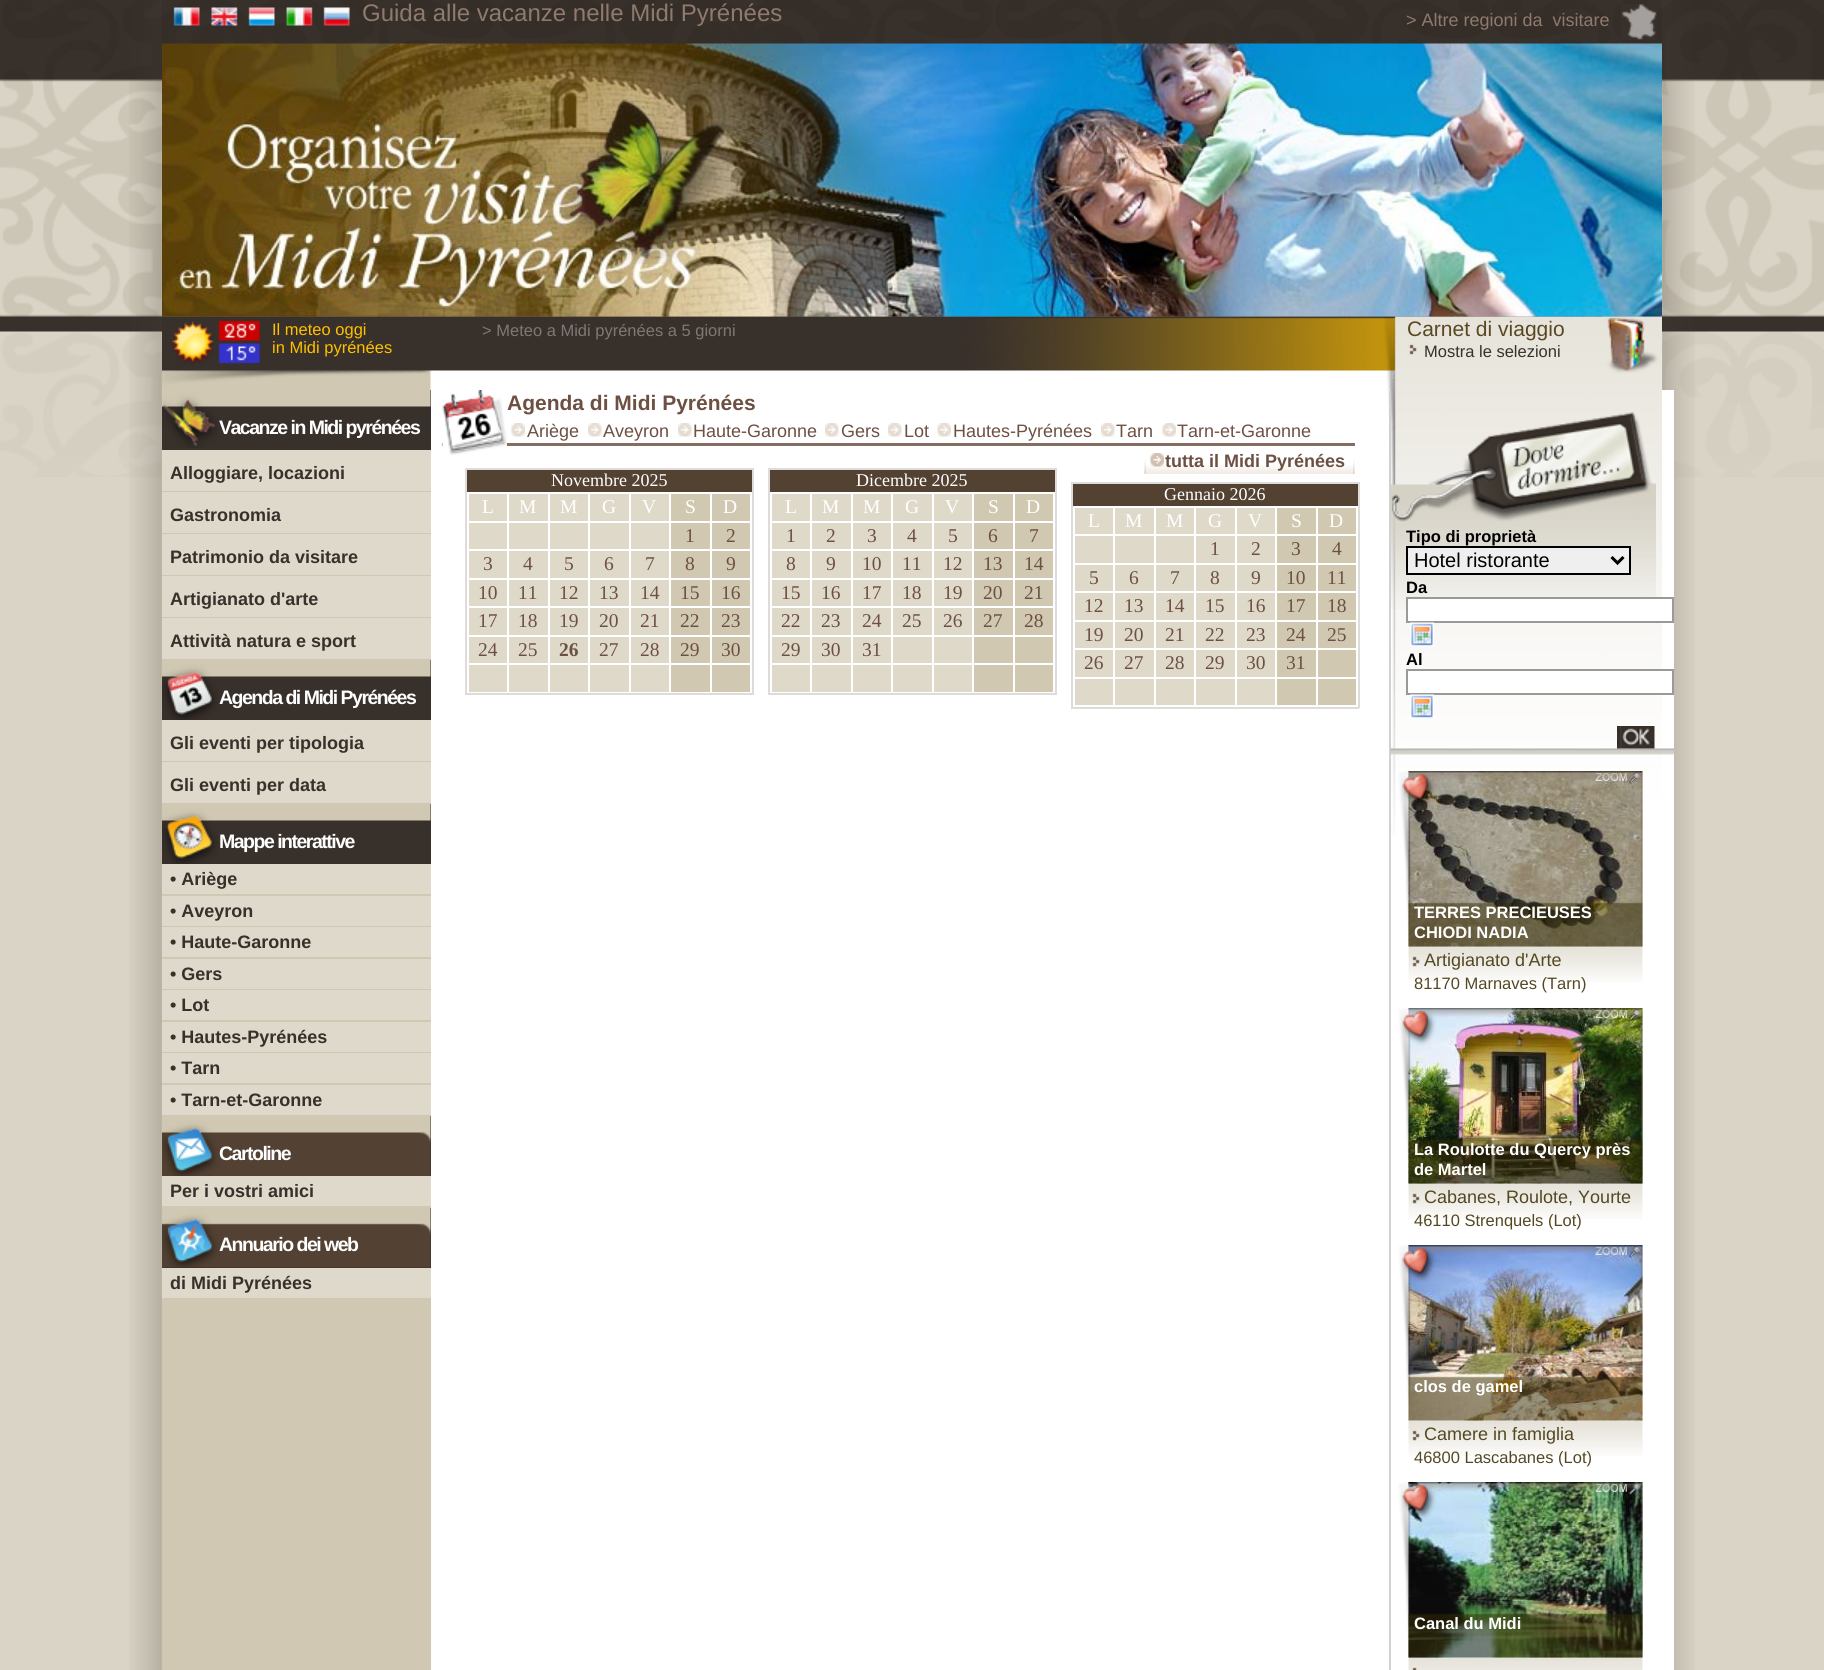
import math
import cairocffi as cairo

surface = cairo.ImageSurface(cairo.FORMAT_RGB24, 1824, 1670)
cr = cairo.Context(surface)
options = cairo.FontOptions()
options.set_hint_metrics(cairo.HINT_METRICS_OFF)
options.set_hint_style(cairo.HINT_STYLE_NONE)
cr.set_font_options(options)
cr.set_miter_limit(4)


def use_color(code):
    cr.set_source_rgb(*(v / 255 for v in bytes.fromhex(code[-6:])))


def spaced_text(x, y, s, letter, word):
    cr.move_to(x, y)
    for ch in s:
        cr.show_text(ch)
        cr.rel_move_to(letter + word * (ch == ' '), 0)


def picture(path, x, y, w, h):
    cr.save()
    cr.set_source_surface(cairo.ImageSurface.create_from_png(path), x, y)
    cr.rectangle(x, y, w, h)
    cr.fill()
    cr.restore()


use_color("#d9d4c6")
cr.paint()
picture("img1.png", 0, 0, 1824, 477)
picture("img2.png", 129, 0, 1566, 1670)
picture("img3.png", 173, 7, 27, 19)
picture("img4.png", 211, 7, 27, 19)
picture("img5.png", 248, 7, 27, 19)
picture("img6.png", 286, 7, 27, 19)
picture("img7.png", 323, 7, 27, 19)
cr.select_font_face("Liberation Sans")
cr.set_font_size(24)
use_color("#8f7a6d")
cr.move_to(362, 21)
cr.show_text("Guida alle vacanze nelle Midi Pyrénées")
cr.set_font_size(18)
cr.move_to(1406, 26)
cr.show_text("> Altre regioni da  visitare")
picture("img8.png", 1621, 4, 36, 36)
picture("img10.png", 162, 316, 1500, 74)
picture("img12.png", 1602, 316, 60, 57)
picture("img9.png", 162, 43, 1500, 274)
picture("img11.png", 172, 320, 88, 44)
cr.set_font_size(16.5)
use_color("#ffc000")
cr.move_to(272, 335)
cr.show_text("Il meteo oggi")
cr.move_to(272, 353)
cr.show_text("in Midi pyrénées")
use_color("#7d7875")
cr.move_to(482, 336)
cr.show_text("> Meteo a Midi pyrénées a 5 giorni")
cr.set_font_size(21)
use_color("#5a4823")
cr.move_to(1407, 336)
cr.show_text("Carnet di viaggio")
picture("img13.png", 1409, 344, 8, 11)
cr.set_font_size(16.5)
use_color("#38302b")
cr.move_to(1424, 357)
cr.show_text("Mostra le selezioni")
use_color("#ffffff")
cr.rectangle(431, 390, 1243, 1280)
cr.fill()
use_color("#d0c8b2")
cr.rectangle(162, 1298, 269, 372)
cr.fill()
use_color("#38302b")
cr.rectangle(162, 390, 269, 60)
cr.fill()
picture("img14.png", 162, 390, 269, 58)
cr.select_font_face("Liberation Sans", cairo.FONT_SLANT_NORMAL, cairo.FONT_WEIGHT_BOLD)
cr.set_font_size(19.5)
use_color("#ffffff")
spaced_text(219, 434, "Vacanze in Midi pyrénées", -1.5, 0)
use_color("#dfd9cb")
cr.rectangle(162, 450, 269, 41)
cr.fill()
use_color("#d0c8b2")
cr.rectangle(162, 491, 269, 1)
cr.fill()
cr.set_font_size(18)
use_color("#38302b")
cr.move_to(170, 479)
cr.show_text("Alloggiare, locazioni")
use_color("#dfd9cb")
cr.rectangle(162, 492, 269, 41)
cr.fill()
use_color("#d0c8b2")
cr.rectangle(162, 533, 269, 1)
cr.fill()
use_color("#38302b")
cr.move_to(170, 521)
cr.show_text("Gastronomia")
use_color("#dfd9cb")
cr.rectangle(162, 534, 269, 41)
cr.fill()
use_color("#d0c8b2")
cr.rectangle(162, 575, 269, 1)
cr.fill()
use_color("#38302b")
cr.move_to(170, 563)
cr.show_text("Patrimonio da visitare")
use_color("#dfd9cb")
cr.rectangle(162, 576, 269, 41)
cr.fill()
use_color("#d0c8b2")
cr.rectangle(162, 617, 269, 1)
cr.fill()
use_color("#38302b")
cr.move_to(170, 605)
cr.show_text("Artigianato d'arte")
use_color("#dfd9cb")
cr.rectangle(162, 618, 269, 41)
cr.fill()
use_color("#d0c8b2")
cr.rectangle(162, 659, 269, 1)
cr.fill()
use_color("#38302b")
cr.move_to(170, 647)
cr.show_text("Attività natura e sport")
cr.rectangle(430, 660, 1, 60)
cr.fill()
picture("img15.png", 162, 660, 269, 60)
cr.set_font_size(19.5)
use_color("#ffffff")
spaced_text(219, 704, "Agenda di Midi Pyrénées", -1.5, 0)
use_color("#dfd9cb")
cr.rectangle(162, 720, 269, 41)
cr.fill()
use_color("#d0c8b2")
cr.rectangle(162, 761, 269, 1)
cr.fill()
cr.set_font_size(18)
use_color("#38302b")
cr.move_to(170, 749)
cr.show_text("Gli eventi per tipologia")
use_color("#dfd9cb")
cr.rectangle(162, 762, 269, 41)
cr.fill()
use_color("#d0c8b2")
cr.rectangle(162, 803, 269, 1)
cr.fill()
use_color("#38302b")
cr.move_to(170, 791)
cr.show_text("Gli eventi per data")
cr.rectangle(430, 804, 1, 60)
cr.fill()
picture("img16.png", 162, 804, 269, 60)
cr.set_font_size(19.5)
use_color("#ffffff")
spaced_text(219, 848, "Mappe interattive", -1.5, 0)
use_color("#dfd9cb")
cr.rectangle(162, 864, 269, 30)
cr.fill()
use_color("#d0c8b2")
cr.rectangle(162, 894, 269, 2)
cr.fill()
cr.set_font_size(18)
use_color("#38302b")
cr.move_to(170, 885)
cr.show_text("• Ariège")
use_color("#dfd9cb")
cr.rectangle(162, 896, 269, 30)
cr.fill()
use_color("#d0c8b2")
cr.rectangle(162, 926, 269, 1)
cr.fill()
use_color("#38302b")
cr.move_to(170, 917)
cr.show_text("• Aveyron")
use_color("#dfd9cb")
cr.rectangle(162, 927, 269, 30)
cr.fill()
use_color("#d0c8b2")
cr.rectangle(162, 957, 269, 2)
cr.fill()
use_color("#38302b")
cr.move_to(170, 948)
cr.show_text("• Haute-Garonne")
use_color("#dfd9cb")
cr.rectangle(162, 959, 269, 30)
cr.fill()
use_color("#d0c8b2")
cr.rectangle(162, 989, 269, 1)
cr.fill()
use_color("#38302b")
cr.move_to(170, 980)
cr.show_text("• Gers")
use_color("#dfd9cb")
cr.rectangle(162, 990, 269, 30)
cr.fill()
use_color("#d0c8b2")
cr.rectangle(162, 1020, 269, 2)
cr.fill()
use_color("#38302b")
cr.move_to(170, 1011)
cr.show_text("• Lot")
use_color("#dfd9cb")
cr.rectangle(162, 1022, 269, 30)
cr.fill()
use_color("#d0c8b2")
cr.rectangle(162, 1052, 269, 1)
cr.fill()
use_color("#38302b")
cr.move_to(170, 1043)
cr.show_text("• Hautes-Pyrénées")
use_color("#dfd9cb")
cr.rectangle(162, 1053, 269, 30)
cr.fill()
use_color("#d0c8b2")
cr.rectangle(162, 1083, 269, 2)
cr.fill()
use_color("#38302b")
cr.move_to(170, 1074)
cr.show_text("• Tarn")
use_color("#dfd9cb")
cr.rectangle(162, 1085, 269, 30)
cr.fill()
use_color("#d0c8b2")
cr.rectangle(162, 1115, 269, 1)
cr.fill()
use_color("#38302b")
cr.move_to(170, 1106)
cr.show_text("• Tarn-et-Garonne")
cr.rectangle(430, 1116, 1, 60)
cr.fill()
picture("img17.png", 162, 1116, 269, 60)
cr.set_font_size(19.5)
use_color("#ffffff")
spaced_text(219, 1160, "Cartoline", -1.5, 0)
use_color("#dfd9cb")
cr.rectangle(162, 1176, 269, 30)
cr.fill()
use_color("#d0c8b2")
cr.rectangle(162, 1206, 269, 2)
cr.fill()
cr.set_font_size(18)
use_color("#38302b")
cr.move_to(170, 1197)
cr.show_text("Per i vostri amici")
cr.rectangle(162, 1208, 269, 60)
cr.fill()
picture("img18.png", 162, 1208, 269, 60)
cr.set_font_size(19.5)
use_color("#ffffff")
spaced_text(219, 1251, "Annuario dei web", -1.5, 0)
use_color("#dfd9cb")
cr.rectangle(162, 1268, 269, 30)
cr.fill()
cr.set_font_size(18)
use_color("#38302b")
cr.move_to(170, 1289)
cr.show_text("di Midi Pyrénées")
use_color("#856d62")
cr.rectangle(442, 443, 913, 3)
cr.fill()
picture("img19.png", 442, 390, 65, 65)
cr.set_font_size(21)
use_color("#6d5043")
cr.move_to(507, 410)
cr.show_text("Agenda di Midi Pyrénées")
picture("img20.png", 511, 423, 14, 14)
cr.select_font_face("Liberation Sans")
cr.set_font_size(18)
cr.move_to(527, 437)
cr.show_text("Ariège")
picture("img21.png", 588, 423, 14, 14)
cr.move_to(603, 437)
cr.show_text("Aveyron")
picture("img22.png", 678, 423, 14, 14)
cr.move_to(693, 437)
cr.show_text("Haute-Garonne")
picture("img22.png", 825, 423, 14, 14)
cr.move_to(841, 437)
cr.show_text("Gers")
picture("img22.png", 888, 423, 14, 14)
cr.move_to(904, 437)
cr.show_text("Lot")
picture("img23.png", 937, 423, 14, 14)
cr.move_to(953, 437)
cr.show_text("Hautes-Pyrénées")
picture("img21.png", 1101, 423, 14, 14)
cr.move_to(1116, 437)
cr.show_text("Tarn")
picture("img24.png", 1162, 423, 14, 14)
cr.move_to(1177, 437)
cr.show_text("Tarn-et-Garonne")
picture("img25.png", 1144, 465, 211, 9)
picture("img26.png", 1144, 460, 2, 14)
picture("img27.png", 1150, 453, 14, 14)
cr.select_font_face("Liberation Sans", cairo.FONT_SLANT_NORMAL, cairo.FONT_WEIGHT_BOLD)
cr.move_to(1165, 467)
cr.show_text("tutta il Midi Pyrénées")
picture("img28.png", 1353, 460, 2, 14)
use_color("#dddcdb")
cr.rectangle(465, 468, 288, 2)
cr.fill()
cr.rectangle(752, 468, 2, 227)
cr.fill()
cr.rectangle(465, 693, 288, 2)
cr.fill()
cr.rectangle(465, 468, 2, 227)
cr.fill()
use_color("#534232")
cr.rectangle(467, 470, 285, 22)
cr.fill()
cr.select_font_face("Liberation Serif")
use_color("#ffffff")
cr.move_to(551, 486)
cr.show_text("Novembre 2025")
use_color("#dfd9ca")
cr.rectangle(469, 494, 38, 27)
cr.fill()
cr.set_font_size(19.5)
use_color("#ffffff")
cr.move_to(482, 513)
cr.show_text("L")
use_color("#dfd9ca")
cr.rectangle(509, 494, 39, 27)
cr.fill()
use_color("#ffffff")
cr.move_to(519, 513)
cr.show_text("M")
use_color("#dfd9ca")
cr.rectangle(550, 494, 38, 27)
cr.fill()
use_color("#ffffff")
cr.move_to(560, 513)
cr.show_text("M")
use_color("#dfd9ca")
cr.rectangle(590, 494, 39, 27)
cr.fill()
use_color("#ffffff")
cr.move_to(602, 513)
cr.show_text("G")
use_color("#dfd9ca")
cr.rectangle(631, 494, 38, 27)
cr.fill()
use_color("#ffffff")
cr.move_to(642, 513)
cr.show_text("V")
use_color("#d0c8b1")
cr.rectangle(671, 494, 39, 27)
cr.fill()
use_color("#ffffff")
cr.move_to(685, 513)
cr.show_text("S")
use_color("#d0c8b1")
cr.rectangle(712, 494, 38, 27)
cr.fill()
use_color("#ffffff")
cr.move_to(723, 513)
cr.show_text("D")
use_color("#dfd9ca")
cr.rectangle(469, 523, 38, 26)
cr.fill()
cr.rectangle(509, 523, 39, 26)
cr.fill()
cr.rectangle(550, 523, 38, 26)
cr.fill()
cr.rectangle(590, 523, 39, 26)
cr.fill()
cr.rectangle(631, 523, 38, 26)
cr.fill()
use_color("#d0c8b1")
cr.rectangle(671, 523, 39, 26)
cr.fill()
use_color("#6d5043")
cr.move_to(685, 542)
cr.show_text("1")
use_color("#d0c8b1")
cr.rectangle(712, 523, 38, 26)
cr.fill()
use_color("#6d5043")
cr.move_to(726, 542)
cr.show_text("2")
use_color("#dfd9ca")
cr.rectangle(469, 551, 38, 27)
cr.fill()
use_color("#6d5043")
cr.move_to(483, 570)
cr.show_text("3")
use_color("#dfd9ca")
cr.rectangle(509, 551, 39, 27)
cr.fill()
use_color("#6d5043")
cr.move_to(523, 570)
cr.show_text("4")
use_color("#dfd9ca")
cr.rectangle(550, 551, 38, 27)
cr.fill()
use_color("#6d5043")
cr.move_to(564, 570)
cr.show_text("5")
use_color("#dfd9ca")
cr.rectangle(590, 551, 39, 27)
cr.fill()
use_color("#6d5043")
cr.move_to(604, 570)
cr.show_text("6")
use_color("#dfd9ca")
cr.rectangle(631, 551, 38, 27)
cr.fill()
use_color("#6d5043")
cr.move_to(645, 570)
cr.show_text("7")
use_color("#d0c8b1")
cr.rectangle(671, 551, 39, 27)
cr.fill()
use_color("#6d5043")
cr.move_to(685, 570)
cr.show_text("8")
use_color("#d0c8b1")
cr.rectangle(712, 551, 38, 27)
cr.fill()
use_color("#6d5043")
cr.move_to(726, 570)
cr.show_text("9")
use_color("#dfd9ca")
cr.rectangle(469, 580, 38, 26)
cr.fill()
use_color("#6d5043")
cr.move_to(478, 599)
cr.show_text("10")
use_color("#dfd9ca")
cr.rectangle(509, 580, 39, 26)
cr.fill()
use_color("#6d5043")
cr.move_to(518, 599)
cr.show_text("11")
use_color("#dfd9ca")
cr.rectangle(550, 580, 38, 26)
cr.fill()
use_color("#6d5043")
cr.move_to(559, 599)
cr.show_text("12")
use_color("#dfd9ca")
cr.rectangle(590, 580, 39, 26)
cr.fill()
use_color("#6d5043")
cr.move_to(599, 599)
cr.show_text("13")
use_color("#dfd9ca")
cr.rectangle(631, 580, 38, 26)
cr.fill()
use_color("#6d5043")
cr.move_to(640, 599)
cr.show_text("14")
use_color("#d0c8b1")
cr.rectangle(671, 580, 39, 26)
cr.fill()
use_color("#6d5043")
cr.move_to(680, 599)
cr.show_text("15")
use_color("#d0c8b1")
cr.rectangle(712, 580, 38, 26)
cr.fill()
use_color("#6d5043")
cr.move_to(721, 599)
cr.show_text("16")
use_color("#dfd9ca")
cr.rectangle(469, 608, 38, 27)
cr.fill()
use_color("#6d5043")
cr.move_to(478, 627)
cr.show_text("17")
use_color("#dfd9ca")
cr.rectangle(509, 608, 39, 27)
cr.fill()
use_color("#6d5043")
cr.move_to(518, 627)
cr.show_text("18")
use_color("#dfd9ca")
cr.rectangle(550, 608, 38, 27)
cr.fill()
use_color("#6d5043")
cr.move_to(559, 627)
cr.show_text("19")
use_color("#dfd9ca")
cr.rectangle(590, 608, 39, 27)
cr.fill()
use_color("#6d5043")
cr.move_to(599, 627)
cr.show_text("20")
use_color("#dfd9ca")
cr.rectangle(631, 608, 38, 27)
cr.fill()
use_color("#6d5043")
cr.move_to(640, 627)
cr.show_text("21")
use_color("#d0c8b1")
cr.rectangle(671, 608, 39, 27)
cr.fill()
use_color("#6d5043")
cr.move_to(680, 627)
cr.show_text("22")
use_color("#d0c8b1")
cr.rectangle(712, 608, 38, 27)
cr.fill()
use_color("#6d5043")
cr.move_to(721, 627)
cr.show_text("23")
use_color("#dfd9ca")
cr.rectangle(469, 637, 38, 26)
cr.fill()
use_color("#6d5043")
cr.move_to(478, 656)
cr.show_text("24")
use_color("#dfd9ca")
cr.rectangle(509, 637, 39, 26)
cr.fill()
use_color("#6d5043")
cr.move_to(518, 656)
cr.show_text("25")
use_color("#dfd9ca")
cr.rectangle(550, 637, 38, 26)
cr.fill()
cr.select_font_face("Liberation Serif", cairo.FONT_SLANT_NORMAL, cairo.FONT_WEIGHT_BOLD)
use_color("#6d5043")
cr.move_to(559, 656)
cr.show_text("26")
use_color("#dfd9ca")
cr.rectangle(590, 637, 39, 26)
cr.fill()
cr.select_font_face("Liberation Serif")
use_color("#6d5043")
cr.move_to(599, 656)
cr.show_text("27")
use_color("#dfd9ca")
cr.rectangle(631, 637, 38, 26)
cr.fill()
use_color("#6d5043")
cr.move_to(640, 656)
cr.show_text("28")
use_color("#d0c8b1")
cr.rectangle(671, 637, 39, 26)
cr.fill()
use_color("#6d5043")
cr.move_to(680, 656)
cr.show_text("29")
use_color("#d0c8b1")
cr.rectangle(712, 637, 38, 26)
cr.fill()
use_color("#6d5043")
cr.move_to(721, 656)
cr.show_text("30")
use_color("#dfd9ca")
cr.rectangle(469, 665, 38, 27)
cr.fill()
cr.rectangle(509, 665, 39, 27)
cr.fill()
cr.rectangle(550, 665, 38, 27)
cr.fill()
cr.rectangle(590, 665, 39, 27)
cr.fill()
cr.rectangle(631, 665, 38, 27)
cr.fill()
use_color("#d0c8b1")
cr.rectangle(671, 665, 39, 27)
cr.fill()
cr.rectangle(712, 665, 38, 27)
cr.fill()
use_color("#dddcdb")
cr.rectangle(768, 468, 288, 2)
cr.fill()
cr.rectangle(1055, 468, 2, 227)
cr.fill()
cr.rectangle(768, 693, 288, 2)
cr.fill()
cr.rectangle(768, 468, 2, 227)
cr.fill()
use_color("#534232")
cr.rectangle(770, 470, 285, 22)
cr.fill()
cr.set_font_size(18)
use_color("#ffffff")
cr.move_to(856, 486)
cr.show_text("Dicembre 2025")
use_color("#dfd9ca")
cr.rectangle(772, 494, 38, 27)
cr.fill()
cr.set_font_size(19.5)
use_color("#ffffff")
cr.move_to(785, 513)
cr.show_text("L")
use_color("#dfd9ca")
cr.rectangle(812, 494, 39, 27)
cr.fill()
use_color("#ffffff")
cr.move_to(822, 513)
cr.show_text("M")
use_color("#dfd9ca")
cr.rectangle(853, 494, 38, 27)
cr.fill()
use_color("#ffffff")
cr.move_to(863, 513)
cr.show_text("M")
use_color("#dfd9ca")
cr.rectangle(893, 494, 39, 27)
cr.fill()
use_color("#ffffff")
cr.move_to(905, 513)
cr.show_text("G")
use_color("#dfd9ca")
cr.rectangle(934, 494, 38, 27)
cr.fill()
use_color("#ffffff")
cr.move_to(945, 513)
cr.show_text("V")
use_color("#d0c8b1")
cr.rectangle(974, 494, 39, 27)
cr.fill()
use_color("#ffffff")
cr.move_to(988, 513)
cr.show_text("S")
use_color("#d0c8b1")
cr.rectangle(1015, 494, 38, 27)
cr.fill()
use_color("#ffffff")
cr.move_to(1026, 513)
cr.show_text("D")
use_color("#dfd9ca")
cr.rectangle(772, 523, 38, 26)
cr.fill()
use_color("#6d5043")
cr.move_to(786, 542)
cr.show_text("1")
use_color("#dfd9ca")
cr.rectangle(812, 523, 39, 26)
cr.fill()
use_color("#6d5043")
cr.move_to(826, 542)
cr.show_text("2")
use_color("#dfd9ca")
cr.rectangle(853, 523, 38, 26)
cr.fill()
use_color("#6d5043")
cr.move_to(867, 542)
cr.show_text("3")
use_color("#dfd9ca")
cr.rectangle(893, 523, 39, 26)
cr.fill()
use_color("#6d5043")
cr.move_to(907, 542)
cr.show_text("4")
use_color("#dfd9ca")
cr.rectangle(934, 523, 38, 26)
cr.fill()
use_color("#6d5043")
cr.move_to(948, 542)
cr.show_text("5")
use_color("#d0c8b1")
cr.rectangle(974, 523, 39, 26)
cr.fill()
use_color("#6d5043")
cr.move_to(988, 542)
cr.show_text("6")
use_color("#d0c8b1")
cr.rectangle(1015, 523, 38, 26)
cr.fill()
use_color("#6d5043")
cr.move_to(1029, 542)
cr.show_text("7")
use_color("#dfd9ca")
cr.rectangle(772, 551, 38, 27)
cr.fill()
use_color("#6d5043")
cr.move_to(786, 570)
cr.show_text("8")
use_color("#dfd9ca")
cr.rectangle(812, 551, 39, 27)
cr.fill()
use_color("#6d5043")
cr.move_to(826, 570)
cr.show_text("9")
use_color("#dfd9ca")
cr.rectangle(853, 551, 38, 27)
cr.fill()
use_color("#6d5043")
cr.move_to(862, 570)
cr.show_text("10")
use_color("#dfd9ca")
cr.rectangle(893, 551, 39, 27)
cr.fill()
use_color("#6d5043")
cr.move_to(902, 570)
cr.show_text("11")
use_color("#dfd9ca")
cr.rectangle(934, 551, 38, 27)
cr.fill()
use_color("#6d5043")
cr.move_to(943, 570)
cr.show_text("12")
use_color("#d0c8b1")
cr.rectangle(974, 551, 39, 27)
cr.fill()
use_color("#6d5043")
cr.move_to(983, 570)
cr.show_text("13")
use_color("#d0c8b1")
cr.rectangle(1015, 551, 38, 27)
cr.fill()
use_color("#6d5043")
cr.move_to(1024, 570)
cr.show_text("14")
use_color("#dfd9ca")
cr.rectangle(772, 580, 38, 26)
cr.fill()
use_color("#6d5043")
cr.move_to(781, 599)
cr.show_text("15")
use_color("#dfd9ca")
cr.rectangle(812, 580, 39, 26)
cr.fill()
use_color("#6d5043")
cr.move_to(821, 599)
cr.show_text("16")
use_color("#dfd9ca")
cr.rectangle(853, 580, 38, 26)
cr.fill()
use_color("#6d5043")
cr.move_to(862, 599)
cr.show_text("17")
use_color("#dfd9ca")
cr.rectangle(893, 580, 39, 26)
cr.fill()
use_color("#6d5043")
cr.move_to(902, 599)
cr.show_text("18")
use_color("#dfd9ca")
cr.rectangle(934, 580, 38, 26)
cr.fill()
use_color("#6d5043")
cr.move_to(943, 599)
cr.show_text("19")
use_color("#d0c8b1")
cr.rectangle(974, 580, 39, 26)
cr.fill()
use_color("#6d5043")
cr.move_to(983, 599)
cr.show_text("20")
use_color("#d0c8b1")
cr.rectangle(1015, 580, 38, 26)
cr.fill()
use_color("#6d5043")
cr.move_to(1024, 599)
cr.show_text("21")
use_color("#dfd9ca")
cr.rectangle(772, 608, 38, 27)
cr.fill()
use_color("#6d5043")
cr.move_to(781, 627)
cr.show_text("22")
use_color("#dfd9ca")
cr.rectangle(812, 608, 39, 27)
cr.fill()
use_color("#6d5043")
cr.move_to(821, 627)
cr.show_text("23")
use_color("#dfd9ca")
cr.rectangle(853, 608, 38, 27)
cr.fill()
use_color("#6d5043")
cr.move_to(862, 627)
cr.show_text("24")
use_color("#dfd9ca")
cr.rectangle(893, 608, 39, 27)
cr.fill()
use_color("#6d5043")
cr.move_to(902, 627)
cr.show_text("25")
use_color("#dfd9ca")
cr.rectangle(934, 608, 38, 27)
cr.fill()
use_color("#6d5043")
cr.move_to(943, 627)
cr.show_text("26")
use_color("#d0c8b1")
cr.rectangle(974, 608, 39, 27)
cr.fill()
use_color("#6d5043")
cr.move_to(983, 627)
cr.show_text("27")
use_color("#d0c8b1")
cr.rectangle(1015, 608, 38, 27)
cr.fill()
use_color("#6d5043")
cr.move_to(1024, 627)
cr.show_text("28")
use_color("#dfd9ca")
cr.rectangle(772, 637, 38, 26)
cr.fill()
use_color("#6d5043")
cr.move_to(781, 656)
cr.show_text("29")
use_color("#dfd9ca")
cr.rectangle(812, 637, 39, 26)
cr.fill()
use_color("#6d5043")
cr.move_to(821, 656)
cr.show_text("30")
use_color("#dfd9ca")
cr.rectangle(853, 637, 38, 26)
cr.fill()
use_color("#6d5043")
cr.move_to(862, 656)
cr.show_text("31")
use_color("#dfd9ca")
cr.rectangle(893, 637, 39, 26)
cr.fill()
cr.rectangle(934, 637, 38, 26)
cr.fill()
use_color("#d0c8b1")
cr.rectangle(974, 637, 39, 26)
cr.fill()
cr.rectangle(1015, 637, 38, 26)
cr.fill()
use_color("#dfd9ca")
cr.rectangle(772, 665, 38, 27)
cr.fill()
cr.rectangle(812, 665, 39, 27)
cr.fill()
cr.rectangle(853, 665, 38, 27)
cr.fill()
cr.rectangle(893, 665, 39, 27)
cr.fill()
cr.rectangle(934, 665, 38, 27)
cr.fill()
use_color("#d0c8b1")
cr.rectangle(974, 665, 39, 27)
cr.fill()
cr.rectangle(1015, 665, 38, 27)
cr.fill()
use_color("#dddcdb")
cr.rectangle(1071, 482, 288, 2)
cr.fill()
cr.rectangle(1358, 482, 2, 226)
cr.fill()
cr.rectangle(1071, 707, 288, 2)
cr.fill()
cr.rectangle(1071, 482, 2, 226)
cr.fill()
use_color("#534232")
cr.rectangle(1073, 484, 285, 22)
cr.fill()
cr.set_font_size(18)
use_color("#ffffff")
cr.move_to(1164, 500)
cr.show_text("Gennaio 2026")
use_color("#dfd9ca")
cr.rectangle(1075, 508, 38, 26)
cr.fill()
cr.set_font_size(19.5)
use_color("#ffffff")
cr.move_to(1088, 527)
cr.show_text("L")
use_color("#dfd9ca")
cr.rectangle(1115, 508, 39, 26)
cr.fill()
use_color("#ffffff")
cr.move_to(1125, 527)
cr.show_text("M")
use_color("#dfd9ca")
cr.rectangle(1156, 508, 38, 26)
cr.fill()
use_color("#ffffff")
cr.move_to(1166, 527)
cr.show_text("M")
use_color("#dfd9ca")
cr.rectangle(1196, 508, 39, 26)
cr.fill()
use_color("#ffffff")
cr.move_to(1208, 527)
cr.show_text("G")
use_color("#dfd9ca")
cr.rectangle(1237, 508, 38, 26)
cr.fill()
use_color("#ffffff")
cr.move_to(1248, 527)
cr.show_text("V")
use_color("#d0c8b1")
cr.rectangle(1277, 508, 39, 26)
cr.fill()
use_color("#ffffff")
cr.move_to(1291, 527)
cr.show_text("S")
use_color("#d0c8b1")
cr.rectangle(1318, 508, 38, 26)
cr.fill()
use_color("#ffffff")
cr.move_to(1329, 527)
cr.show_text("D")
use_color("#dfd9ca")
cr.rectangle(1075, 536, 38, 27)
cr.fill()
cr.rectangle(1115, 536, 39, 27)
cr.fill()
cr.rectangle(1156, 536, 38, 27)
cr.fill()
cr.rectangle(1196, 536, 39, 27)
cr.fill()
use_color("#6d5043")
cr.move_to(1210, 555)
cr.show_text("1")
use_color("#dfd9ca")
cr.rectangle(1237, 536, 38, 27)
cr.fill()
use_color("#6d5043")
cr.move_to(1251, 555)
cr.show_text("2")
use_color("#d0c8b1")
cr.rectangle(1277, 536, 39, 27)
cr.fill()
use_color("#6d5043")
cr.move_to(1291, 555)
cr.show_text("3")
use_color("#d0c8b1")
cr.rectangle(1318, 536, 38, 27)
cr.fill()
use_color("#6d5043")
cr.move_to(1332, 555)
cr.show_text("4")
use_color("#dfd9ca")
cr.rectangle(1075, 565, 38, 26)
cr.fill()
use_color("#6d5043")
cr.move_to(1089, 584)
cr.show_text("5")
use_color("#dfd9ca")
cr.rectangle(1115, 565, 39, 26)
cr.fill()
use_color("#6d5043")
cr.move_to(1129, 584)
cr.show_text("6")
use_color("#dfd9ca")
cr.rectangle(1156, 565, 38, 26)
cr.fill()
use_color("#6d5043")
cr.move_to(1170, 584)
cr.show_text("7")
use_color("#dfd9ca")
cr.rectangle(1196, 565, 39, 26)
cr.fill()
use_color("#6d5043")
cr.move_to(1210, 584)
cr.show_text("8")
use_color("#dfd9ca")
cr.rectangle(1237, 565, 38, 26)
cr.fill()
use_color("#6d5043")
cr.move_to(1251, 584)
cr.show_text("9")
use_color("#d0c8b1")
cr.rectangle(1277, 565, 39, 26)
cr.fill()
use_color("#6d5043")
cr.move_to(1286, 584)
cr.show_text("10")
use_color("#d0c8b1")
cr.rectangle(1318, 565, 38, 26)
cr.fill()
use_color("#6d5043")
cr.move_to(1327, 584)
cr.show_text("11")
use_color("#dfd9ca")
cr.rectangle(1075, 593, 38, 27)
cr.fill()
use_color("#6d5043")
cr.move_to(1084, 612)
cr.show_text("12")
use_color("#dfd9ca")
cr.rectangle(1115, 593, 39, 27)
cr.fill()
use_color("#6d5043")
cr.move_to(1124, 612)
cr.show_text("13")
use_color("#dfd9ca")
cr.rectangle(1156, 593, 38, 27)
cr.fill()
use_color("#6d5043")
cr.move_to(1165, 612)
cr.show_text("14")
use_color("#dfd9ca")
cr.rectangle(1196, 593, 39, 27)
cr.fill()
use_color("#6d5043")
cr.move_to(1205, 612)
cr.show_text("15")
use_color("#dfd9ca")
cr.rectangle(1237, 593, 38, 27)
cr.fill()
use_color("#6d5043")
cr.move_to(1246, 612)
cr.show_text("16")
use_color("#d0c8b1")
cr.rectangle(1277, 593, 39, 27)
cr.fill()
use_color("#6d5043")
cr.move_to(1286, 612)
cr.show_text("17")
use_color("#d0c8b1")
cr.rectangle(1318, 593, 38, 27)
cr.fill()
use_color("#6d5043")
cr.move_to(1327, 612)
cr.show_text("18")
use_color("#dfd9ca")
cr.rectangle(1075, 622, 38, 26)
cr.fill()
use_color("#6d5043")
cr.move_to(1084, 641)
cr.show_text("19")
use_color("#dfd9ca")
cr.rectangle(1115, 622, 39, 26)
cr.fill()
use_color("#6d5043")
cr.move_to(1124, 641)
cr.show_text("20")
use_color("#dfd9ca")
cr.rectangle(1156, 622, 38, 26)
cr.fill()
use_color("#6d5043")
cr.move_to(1165, 641)
cr.show_text("21")
use_color("#dfd9ca")
cr.rectangle(1196, 622, 39, 26)
cr.fill()
use_color("#6d5043")
cr.move_to(1205, 641)
cr.show_text("22")
use_color("#dfd9ca")
cr.rectangle(1237, 622, 38, 26)
cr.fill()
use_color("#6d5043")
cr.move_to(1246, 641)
cr.show_text("23")
use_color("#d0c8b1")
cr.rectangle(1277, 622, 39, 26)
cr.fill()
use_color("#6d5043")
cr.move_to(1286, 641)
cr.show_text("24")
use_color("#d0c8b1")
cr.rectangle(1318, 622, 38, 26)
cr.fill()
use_color("#6d5043")
cr.move_to(1327, 641)
cr.show_text("25")
use_color("#dfd9ca")
cr.rectangle(1075, 650, 38, 27)
cr.fill()
use_color("#6d5043")
cr.move_to(1084, 669)
cr.show_text("26")
use_color("#dfd9ca")
cr.rectangle(1115, 650, 39, 27)
cr.fill()
use_color("#6d5043")
cr.move_to(1124, 669)
cr.show_text("27")
use_color("#dfd9ca")
cr.rectangle(1156, 650, 38, 27)
cr.fill()
use_color("#6d5043")
cr.move_to(1165, 669)
cr.show_text("28")
use_color("#dfd9ca")
cr.rectangle(1196, 650, 39, 27)
cr.fill()
use_color("#6d5043")
cr.move_to(1205, 669)
cr.show_text("29")
use_color("#dfd9ca")
cr.rectangle(1237, 650, 38, 27)
cr.fill()
use_color("#6d5043")
cr.move_to(1246, 669)
cr.show_text("30")
use_color("#d0c8b1")
cr.rectangle(1277, 650, 39, 27)
cr.fill()
use_color("#6d5043")
cr.move_to(1286, 669)
cr.show_text("31")
use_color("#d0c8b1")
cr.rectangle(1318, 650, 38, 27)
cr.fill()
use_color("#dfd9ca")
cr.rectangle(1075, 679, 38, 26)
cr.fill()
cr.rectangle(1115, 679, 39, 26)
cr.fill()
cr.rectangle(1156, 679, 38, 26)
cr.fill()
cr.rectangle(1196, 679, 39, 26)
cr.fill()
cr.rectangle(1237, 679, 38, 26)
cr.fill()
use_color("#d0c8b1")
cr.rectangle(1277, 679, 39, 26)
cr.fill()
cr.rectangle(1318, 679, 38, 26)
cr.fill()
picture("img29.png", 1387, 390, 275, 445)
use_color("#d1d1d1")
cr.rectangle(1389, 390, 2, 1280)
cr.fill()
picture("img30.png", 1390, 412, 266, 197)
cr.select_font_face("Liberation Sans", cairo.FONT_SLANT_NORMAL, cairo.FONT_WEIGHT_BOLD)
cr.set_font_size(16.5)
use_color("#000000")
cr.move_to(1406, 542)
cr.show_text("Tipo di proprietà")
use_color("#efefef")
cr.rectangle(1407, 547, 223, 27)
cr.fill_preserve()
use_color("#000000")
cr.stroke()
cr.new_path()
cr.move_to(1611.5, 557)
cr.line_to(1617.5, 563)
cr.line_to(1623.5, 557)
cr.set_line_width(3)
cr.stroke()
cr.select_font_face("Liberation Sans")
cr.set_font_size(20)
cr.move_to(1414, 567)
cr.show_text("Hotel ristorante")
cr.select_font_face("Liberation Sans", cairo.FONT_SLANT_NORMAL, cairo.FONT_WEIGHT_BOLD)
cr.set_font_size(16.5)
cr.move_to(1406, 593)
cr.show_text("Da")
use_color("#ffffff")
cr.rectangle(1408, 599, 254, 22)
cr.fill()
cr.rectangle(1407, 598, 266, 24)
use_color("#999999")
cr.set_line_width(2)
cr.stroke()
picture("img31.png", 1410, 622, 24, 25)
use_color("#000000")
cr.move_to(1406, 665)
cr.show_text("Al")
use_color("#ffffff")
cr.rectangle(1408, 671, 254, 22)
cr.fill()
cr.rectangle(1407, 670, 266, 24)
use_color("#999999")
cr.stroke()
picture("img32.png", 1410, 694, 24, 24)
picture("img34.png", 1390, 748, 284, 7)
picture("img33.png", 1617, 726, 38, 23)
picture("img37.png", 1408, 946, 235, 36)
picture("img36.png", 1408, 771, 235, 176)
picture("img35.png", 1398, 771, 245, 176)
use_color("#ffffff")
cr.move_to(1414, 918)
cr.show_text("TERRES PRECIEUSES")
cr.move_to(1414, 938)
cr.show_text("CHIODI NADIA")
cr.select_font_face("Liberation Sans")
cr.set_font_size(18)
use_color("#544823")
cr.move_to(1424, 966)
cr.show_text("Artigianato d'Arte")
cr.set_font_size(16.5)
cr.move_to(1414, 989)
cr.show_text("81170 Marnaves (Tarn)")
picture("img37.png", 1408, 1183, 235, 36)
picture("img39.png", 1408, 1008, 235, 176)
picture("img38.png", 1398, 1008, 245, 176)
cr.select_font_face("Liberation Sans", cairo.FONT_SLANT_NORMAL, cairo.FONT_WEIGHT_BOLD)
use_color("#ffffff")
cr.move_to(1414, 1155)
cr.show_text("La Roulotte du Quercy près")
cr.move_to(1414, 1175)
cr.show_text("de Martel")
cr.select_font_face("Liberation Sans")
cr.set_font_size(18)
use_color("#544823")
cr.move_to(1424, 1203)
cr.show_text("Cabanes, Roulote, Yourte")
cr.set_font_size(16.5)
cr.move_to(1414, 1226)
cr.show_text("46110 Strenquels (Lot)")
picture("img37.png", 1408, 1420, 235, 36)
picture("img41.png", 1408, 1245, 235, 176)
picture("img40.png", 1398, 1245, 245, 176)
cr.select_font_face("Liberation Sans", cairo.FONT_SLANT_NORMAL, cairo.FONT_WEIGHT_BOLD)
use_color("#ffffff")
cr.move_to(1414, 1392)
cr.show_text("clos de gamel")
cr.select_font_face("Liberation Sans")
cr.set_font_size(18)
use_color("#544823")
cr.move_to(1424, 1440)
cr.show_text("Camere in famiglia")
cr.set_font_size(16.5)
cr.move_to(1414, 1463)
cr.show_text("46800 Lascabanes (Lot)")
picture("img44.png", 1408, 1657, 235, 13)
picture("img43.png", 1408, 1482, 235, 176)
picture("img42.png", 1398, 1482, 245, 176)
cr.select_font_face("Liberation Sans", cairo.FONT_SLANT_NORMAL, cairo.FONT_WEIGHT_BOLD)
use_color("#ffffff")
cr.move_to(1414, 1629)
cr.show_text("Canal du Midi")
surface.write_to_png("result.png")
